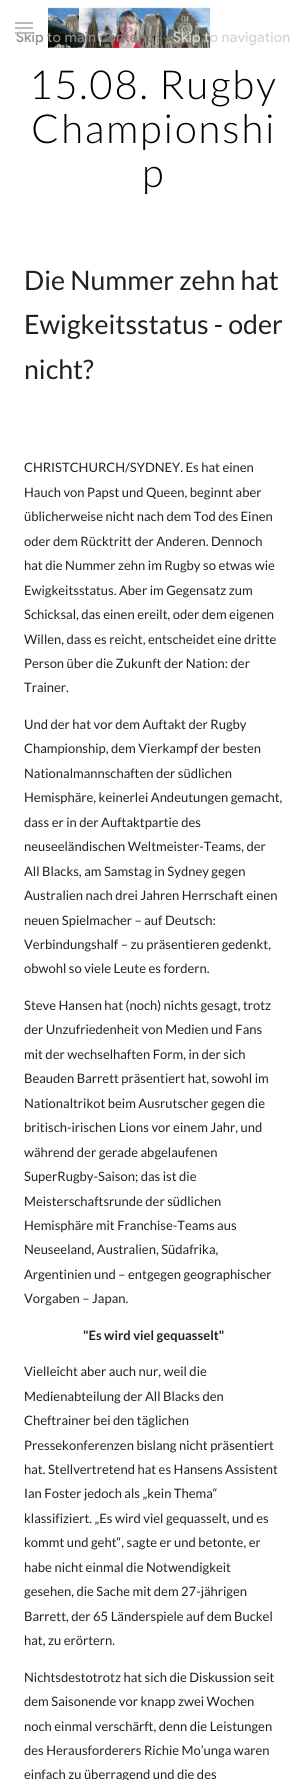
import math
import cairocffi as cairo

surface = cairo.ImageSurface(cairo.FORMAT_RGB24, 307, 1780)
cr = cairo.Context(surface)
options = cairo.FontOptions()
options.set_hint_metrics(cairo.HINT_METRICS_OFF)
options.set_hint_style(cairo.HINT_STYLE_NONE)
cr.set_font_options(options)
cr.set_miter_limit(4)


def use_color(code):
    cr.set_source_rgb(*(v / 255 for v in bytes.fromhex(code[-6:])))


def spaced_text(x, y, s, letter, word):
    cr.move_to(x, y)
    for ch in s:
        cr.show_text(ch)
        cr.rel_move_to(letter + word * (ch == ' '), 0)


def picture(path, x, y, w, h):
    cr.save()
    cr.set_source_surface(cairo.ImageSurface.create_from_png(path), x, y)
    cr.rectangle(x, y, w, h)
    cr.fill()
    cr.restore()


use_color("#ffffff")
cr.paint()
picture("img1.png", 48, 7, 163, 41)
cr.select_font_face("Google Sans Medium")
cr.set_font_size(14)
use_color("#898380")
spaced_text(16, 42, "Skip to main content", 0.1, 0)
use_color("#d5d5d1")
spaced_text(173, 42, "Skip to navigation", 0.1, 0)
use_color("#b2b2b2")
cr.rectangle(15, 22, 18, 2)
cr.fill()
cr.rectangle(15, 27, 18, 2)
cr.fill()
cr.rectangle(15, 32, 18, 2)
cr.fill()
cr.set_source_rgba(1, 1, 1, 0.12)
cr.rectangle(15, 22, 25, 22)
cr.fill()
cr.select_font_face("Lato Light")
cr.set_font_size(40)
use_color("#000000")
spaced_text(29, 99, "15.08. Rugby", 2, 0)
spaced_text(31, 143, "Championshi", 2, 0)
spaced_text(142, 187, "p", 2, 0)
cr.select_font_face("Lato")
cr.set_font_size(26.75)
use_color("#212121")
cr.move_to(24, 290)
cr.show_text("Die Nummer zehn hat")
cr.move_to(24, 334)
cr.show_text("Ewigkeitsstatus - oder")
cr.move_to(24, 379)
cr.show_text("nicht?")
cr.set_font_size(13)
cr.move_to(24, 472)
cr.show_text("CHRISTCHURCH/SYDNEY. Es hat einen")
cr.move_to(24, 497)
cr.show_text("Hauch von Papst und Queen, beginnt aber")
cr.move_to(24, 521)
cr.show_text("üblicherweise nicht nach dem Tod des Einen")
cr.move_to(24, 546)
cr.show_text("oder dem Rücktritt der Anderen. Dennoch")
cr.move_to(24, 570)
cr.show_text("hat die Nummer zehn im Rugby so etwas wie")
cr.move_to(24, 595)
cr.show_text("Ewigkeitsstatus. Aber im Gegensatz zum")
cr.move_to(24, 619)
cr.show_text("Schicksal, das einen ereilt, oder dem eigenen")
cr.move_to(24, 644)
cr.show_text("Willen, dass es reicht, entscheidet eine dritte")
cr.move_to(24, 668)
cr.show_text("Person über die Zukunft der Nation: der")
cr.move_to(24, 692)
cr.show_text("Trainer.")
cr.move_to(24, 729)
cr.show_text("Und der hat vor dem Auftakt der Rugby")
cr.move_to(24, 753)
cr.show_text("Championship, dem Vierkampf der besten")
cr.move_to(24, 778)
cr.show_text("Nationalmannschaften der südlichen")
cr.move_to(24, 802)
cr.show_text("Hemisphäre, keinerlei Andeutungen gemacht,")
cr.move_to(24, 827)
cr.show_text("dass er in der Auftaktpartie des")
cr.move_to(24, 851)
cr.show_text("neuseeländischen Weltmeister-Teams, der")
cr.move_to(24, 876)
cr.show_text("All Blacks, am Samstag in Sydney gegen")
cr.move_to(24, 900)
cr.show_text("Australien nach drei Jahren Herrschaft einen")
cr.move_to(24, 925)
cr.show_text("neuen Spielmacher – auf Deutsch:")
cr.move_to(24, 949)
cr.show_text("Verbindungshalf – zu präsentieren gedenkt,")
cr.move_to(24, 973)
cr.show_text("obwohl so viele Leute es fordern.")
cr.move_to(24, 1010)
cr.show_text("Steve Hansen hat (noch) nichts gesagt, trotz")
cr.move_to(24, 1034)
cr.show_text("der Unzufriedenheit von Medien und Fans")
cr.move_to(24, 1059)
cr.show_text("mit der wechselhaften Form, in der sich")
cr.move_to(24, 1083)
cr.show_text("Beauden Barrett präsentiert hat, sowohl im")
cr.move_to(24, 1108)
cr.show_text("Nationaltrikot beim Ausrutscher gegen die")
cr.move_to(24, 1132)
cr.show_text("britisch-irischen Lions vor einem Jahr, und")
cr.move_to(24, 1157)
cr.show_text("während der gerade abgelaufenen")
cr.move_to(24, 1181)
cr.show_text("SuperRugby-Saison; das ist die")
cr.move_to(24, 1206)
cr.show_text("Meisterschaftsrunde der südlichen")
cr.move_to(24, 1230)
cr.show_text("Hemisphäre mit Franchise-Teams aus")
cr.move_to(24, 1254)
cr.show_text("Neuseeland, Australien, Südafrika,")
cr.move_to(24, 1279)
cr.show_text("Argentinien und – entgegen geographischer")
cr.move_to(24, 1303)
cr.show_text("Vorgaben – Japan.")
cr.select_font_face("Lato", cairo.FONT_SLANT_NORMAL, cairo.FONT_WEIGHT_BOLD)
cr.move_to(83, 1340)
cr.show_text("\"Es wird viel gequasselt\"")
cr.select_font_face("Lato")
cr.move_to(24, 1376)
cr.show_text("Vielleicht aber auch nur, weil die")
cr.move_to(24, 1401)
cr.show_text("Medienabteilung der All Blacks den")
cr.move_to(24, 1425)
cr.show_text("Cheftrainer bei den täglichen")
cr.move_to(24, 1450)
cr.show_text("Pressekonferenzen bislang nicht präsentiert")
cr.move_to(24, 1474)
cr.show_text("hat. Stellvertretend hat es Hansens Assistent")
cr.move_to(24, 1498)
cr.show_text("Ian Foster jedoch als „kein Thema“")
cr.move_to(24, 1523)
cr.show_text("klassifiziert. „Es wird viel gequasselt, und es")
cr.move_to(24, 1547)
cr.show_text("kommt und geht“, sagte er und betonte, er")
cr.move_to(24, 1572)
cr.show_text("habe nicht einmal die Notwendigkeit")
cr.move_to(24, 1596)
cr.show_text("gesehen, die Sache mit dem 27-jährigen")
cr.move_to(24, 1621)
cr.show_text("Barrett, der 65 Länderspiele auf dem Buckel")
cr.move_to(24, 1645)
cr.show_text("hat, zu erörtern.")
cr.move_to(24, 1682)
cr.show_text("Nichtsdestotrotz hat sich die Diskussion seit")
cr.move_to(24, 1706)
cr.show_text("dem Saisonende vor knapp zwei Wochen")
cr.move_to(24, 1731)
cr.show_text("noch einmal verschärft, denn die Leistungen")
cr.move_to(24, 1755)
cr.show_text("des Herausforderers Richie Mo’unga waren")
cr.move_to(24, 1779)
cr.show_text("einfach zu überragend und die des")
surface.write_to_png("result.png")
